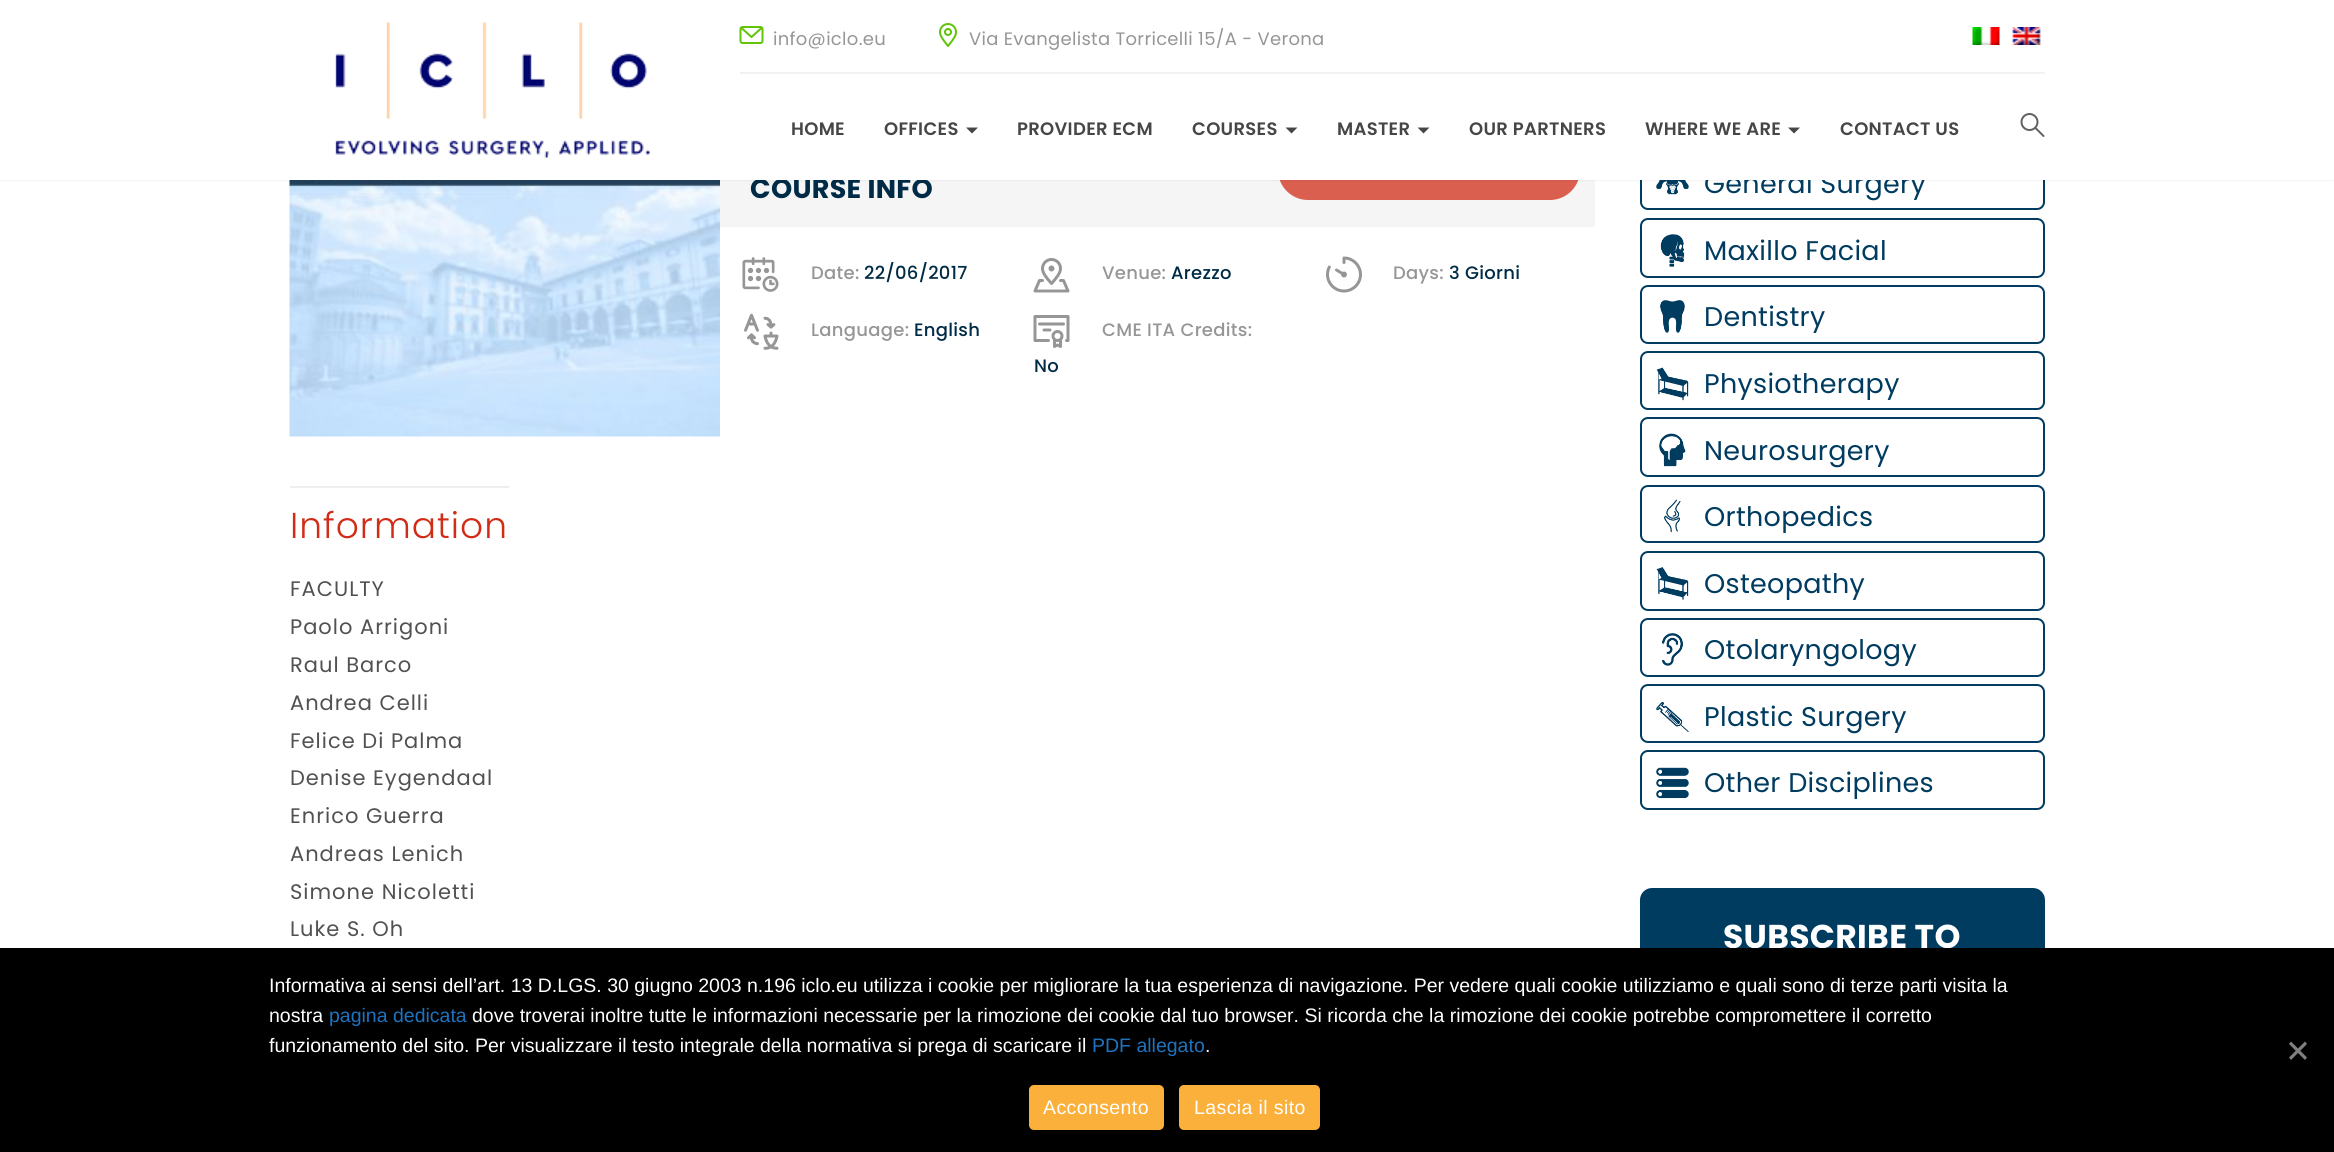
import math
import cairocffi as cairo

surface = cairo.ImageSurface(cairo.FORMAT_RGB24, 2334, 1152)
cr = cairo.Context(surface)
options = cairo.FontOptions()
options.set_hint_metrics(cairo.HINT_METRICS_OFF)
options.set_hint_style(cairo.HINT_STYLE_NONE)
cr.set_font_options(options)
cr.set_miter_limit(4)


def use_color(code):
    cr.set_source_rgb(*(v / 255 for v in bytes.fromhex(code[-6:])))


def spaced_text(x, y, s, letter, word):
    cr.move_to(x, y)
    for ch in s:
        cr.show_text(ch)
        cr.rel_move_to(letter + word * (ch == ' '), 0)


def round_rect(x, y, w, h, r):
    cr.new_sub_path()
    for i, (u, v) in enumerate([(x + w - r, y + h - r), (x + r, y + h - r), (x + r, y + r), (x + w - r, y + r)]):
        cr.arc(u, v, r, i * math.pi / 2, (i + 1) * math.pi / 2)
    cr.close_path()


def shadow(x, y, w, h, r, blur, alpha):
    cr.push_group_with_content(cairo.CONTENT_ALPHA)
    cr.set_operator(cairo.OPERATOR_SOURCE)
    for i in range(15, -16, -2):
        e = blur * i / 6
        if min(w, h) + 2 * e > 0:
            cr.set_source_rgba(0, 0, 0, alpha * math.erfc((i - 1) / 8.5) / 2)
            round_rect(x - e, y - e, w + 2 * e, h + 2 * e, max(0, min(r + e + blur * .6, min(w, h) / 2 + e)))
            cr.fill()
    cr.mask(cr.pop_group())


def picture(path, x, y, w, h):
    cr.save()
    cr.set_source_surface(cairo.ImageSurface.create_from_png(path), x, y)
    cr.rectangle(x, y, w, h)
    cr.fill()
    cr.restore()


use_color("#ffffff")
cr.paint()
picture("img7.png", 289, 180, 431, 257)
use_color("#f5f5f5")
cr.rectangle(720, 180, 875, 47)
cr.fill()
use_color("#da5f4f")
cr.new_path()
cr.move_to(1278, 150)
cr.line_to(1580, 150)
cr.line_to(1580, 170)
cr.curve_to(1580, 186.5, 1566.5, 200, 1550, 200)
cr.line_to(1308, 200)
cr.curve_to(1291.5, 200, 1278, 186.5, 1278, 170)
cr.close_path()
cr.fill()
round_rect(1641, 153, 403, 56, 7)
use_color("#003b60")
cr.stroke()
picture("img13.png", 1656, 180, 33, 15)
use_color("#17181a")
shadow(0, -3, 2334, 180, 0, 2, 1)
cr.select_font_face("Poppins", cairo.FONT_SLANT_NORMAL, cairo.FONT_WEIGHT_BOLD)
cr.set_font_size(27)
use_color("#002b46")
spaced_text(750, 198, "COURSE INFO", 0.3, 0)
cr.select_font_face("Poppins")
use_color("#003b60")
spaced_text(1704, 193, "General Surgery", 0.3, 0)
use_color("#ffffff")
cr.rectangle(0, 0, 2334, 180)
cr.fill()
picture("img1.png", 335, 22, 315, 136)
use_color("#f2f2f2")
cr.rectangle(740, 72, 1305, 2)
cr.fill()
picture("img2.png", 739, 26, 25, 18)
cr.set_font_size(18)
use_color("#969696")
spaced_text(773, 45, "info@iclo.eu", 0.3, 0)
picture("img3.png", 939, 23, 18, 24)
spaced_text(969, 45, "Via Evangelista Torricelli 15/A - Verona", 0.3, 0)
picture("img4.png", 1972, 27, 28, 18)
picture("img5.png", 2012, 27, 29, 18)
cr.select_font_face("Poppins SemiBold")
use_color("#464646")
spaced_text(791, 135, "HOME", 0.3, 0)
spaced_text(884, 135, "OFFICES", 0.3, 0)
cr.new_path()
cr.move_to(966, 127.5)
cr.line_to(978, 127.5)
cr.line_to(972, 133.5)
cr.close_path()
cr.fill()
spaced_text(1017, 135, "PROVIDER ECM", 0.3, 0)
spaced_text(1192, 135, "COURSES", 0.3, 0)
cr.new_path()
cr.move_to(1285.5, 127.5)
cr.line_to(1297.5, 127.5)
cr.line_to(1291.5, 133.5)
cr.close_path()
cr.fill()
spaced_text(1337, 135, "MASTER", 0.3, 0)
cr.new_path()
cr.move_to(1417.5, 127.5)
cr.line_to(1429.5, 127.5)
cr.line_to(1423.5, 133.5)
cr.close_path()
cr.fill()
spaced_text(1469, 135, "OUR PARTNERS", 0.3, 0)
spaced_text(1645, 135, "WHERE WE ARE", 0.3, 0)
cr.new_path()
cr.move_to(1788, 127.5)
cr.line_to(1800, 127.5)
cr.line_to(1794, 133.5)
cr.close_path()
cr.fill()
spaced_text(1840, 135, "CONTACT US", 0.3, 0)
picture("img6.png", 2020, 113, 25, 24)
picture("img8.png", 742, 257, 37, 35)
cr.select_font_face("Poppins Medium")
use_color("#969696")
spaced_text(811, 279, "Date:", 0.3, 0)
use_color("#002b46")
spaced_text(864, 279, "22/06/2017", 0.3, 0)
picture("img9.png", 744, 313, 35, 37)
use_color("#969696")
spaced_text(811, 336, "Language:", 0.3, 0)
use_color("#002b46")
spaced_text(914, 336, "English", 0.3, 0)
picture("img10.png", 1033, 258, 37, 35)
use_color("#969696")
spaced_text(1102, 279, "Venue:", 0.3, 0)
use_color("#002b46")
spaced_text(1171, 279, "Arezzo", 0.3, 0)
picture("img11.png", 1033, 315, 37, 33)
use_color("#969696")
spaced_text(1102, 336, "CME ITA Credits:", 0.3, 0)
use_color("#002b46")
spaced_text(1034, 372, "No", 0.3, 0)
picture("img12.png", 1326, 256, 36, 37)
use_color("#969696")
spaced_text(1393, 279, "Days:", 0.3, 0)
use_color("#002b46")
spaced_text(1449, 279, "3 Giorni", 0.3, 0)
use_color("#eeeeee")
cr.rectangle(290, 486, 219, 2)
cr.fill()
cr.select_font_face("Poppins Light")
cr.set_font_size(36)
use_color("#d02c16")
spaced_text(290, 538, "Information", 1, 0)
cr.select_font_face("Poppins")
cr.set_font_size(21)
use_color("#515151")
spaced_text(290, 596, "FACULTY", 1, 0)
spaced_text(290, 634, "Paolo Arrigoni", 1, 0)
spaced_text(290, 672, "Raul Barco", 1, 0)
spaced_text(290, 710, "Andrea Celli", 1, 0)
spaced_text(290, 748, "Felice Di Palma", 1, 0)
spaced_text(290, 785, "Denise Eygendaal", 1, 0)
spaced_text(290, 823, "Enrico Guerra", 1, 0)
spaced_text(290, 861, "Andreas Lenich", 1, 0)
spaced_text(290, 899, "Simone Nicoletti", 1, 0)
spaced_text(290, 936, "Luke S. Oh", 1, 0)
round_rect(1641, 219, 403, 58, 7)
use_color("#003b60")
cr.stroke()
picture("img14.png", 1660, 234, 25, 33)
cr.set_font_size(27)
spaced_text(1704, 260, "Maxillo Facial", 0.3, 0)
round_rect(1641, 286, 403, 57, 7)
cr.stroke()
picture("img15.png", 1660, 300, 25, 33)
spaced_text(1704, 326, "Dentistry", 0.3, 0)
round_rect(1641, 352, 403, 57, 7)
cr.stroke()
picture("img16.png", 1656, 367, 33, 34)
spaced_text(1704, 393, "Physiotherapy", 0.3, 0)
round_rect(1641, 418, 403, 58, 7)
cr.stroke()
picture("img17.png", 1659, 433, 27, 34)
spaced_text(1704, 460, "Neurosurgery", 0.3, 0)
round_rect(1641, 486, 403, 56, 7)
cr.stroke()
picture("img18.png", 1664, 499, 17, 34)
spaced_text(1704, 526, "Orthopedics", 0.3, 0)
round_rect(1641, 552, 403, 58, 7)
cr.stroke()
picture("img19.png", 1656, 567, 33, 33)
spaced_text(1704, 593, "Osteopathy", 0.3, 0)
round_rect(1641, 619, 403, 57, 7)
cr.stroke()
picture("img20.png", 1661, 633, 22, 33)
spaced_text(1704, 659, "Otolaryngology", 0.3, 0)
round_rect(1641, 685, 403, 57, 7)
cr.stroke()
picture("img21.png", 1656, 702, 33, 30)
spaced_text(1704, 726, "Plastic Surgery", 0.3, 0)
round_rect(1641, 751, 403, 58, 7)
cr.stroke()
picture("img22.png", 1656, 767, 33, 32)
spaced_text(1704, 792, "Other Disciplines", 0.3, 0)
round_rect(1640, 888, 405, 140, 12)
cr.fill()
cr.select_font_face("Poppins", cairo.FONT_SLANT_NORMAL, cairo.FONT_WEIGHT_BOLD)
cr.set_font_size(33)
use_color("#ffffff")
spaced_text(1723, 948, "SUBSCRIBE TO", 0.3, 0)
use_color("#000000")
cr.rectangle(0, 948, 2334, 204)
cr.fill()
cr.select_font_face("Liberation Sans")
cr.set_font_size(19.5)
use_color("#ffffff")
cr.move_to(269, 992)
cr.show_text("Informativa ai sensi dell’art. 13 D.LGS. 30 giugno 2003 n.196 iclo.eu utilizza i cookie per migliorare la tua esperienza di navigazione. Per vedere quali cookie utilizziamo e quali sono di terze parti visita la")
cr.move_to(269, 1022)
cr.show_text("nostra")
use_color("#1e73be")
cr.move_to(329, 1022)
cr.show_text("pagina dedicata")
use_color("#ffffff")
cr.move_to(472, 1022)
cr.show_text("dove troverai inoltre tutte le informazioni necessarie per la rimozione dei cookie dal tuo browser. Si ricorda che la rimozione dei cookie potrebbe compromettere il corretto")
cr.move_to(269, 1052)
cr.show_text("funzionamento del sito. Per visualizzare il testo integrale della normativa si prega di scaricare il")
use_color("#1e73be")
cr.move_to(1092, 1052)
cr.show_text("PDF allegato")
use_color("#ffffff")
cr.move_to(1205, 1052)
cr.show_text(".")
use_color("#808080")
cr.new_path()
cr.move_to(2305, 1041.5)
cr.line_to(2307, 1044)
cr.line_to(2291, 1060)
cr.line_to(2289, 1057.5)
cr.close_path()
cr.fill()
cr.new_path()
cr.move_to(2289, 1044)
cr.line_to(2291, 1041.5)
cr.line_to(2307, 1057.5)
cr.line_to(2305, 1060)
cr.close_path()
cr.fill()
use_color("#fbb03b")
round_rect(1029, 1085, 135, 45, 5)
cr.fill()
use_color("#ffffff")
spaced_text(1043, 1114, "Acconsento", 0.4, 0)
use_color("#fbb03b")
round_rect(1179, 1085, 141, 45, 5)
cr.fill()
use_color("#ffffff")
spaced_text(1194, 1114, "Lascia il sito", 0.4, 0)
surface.write_to_png("result.png")
